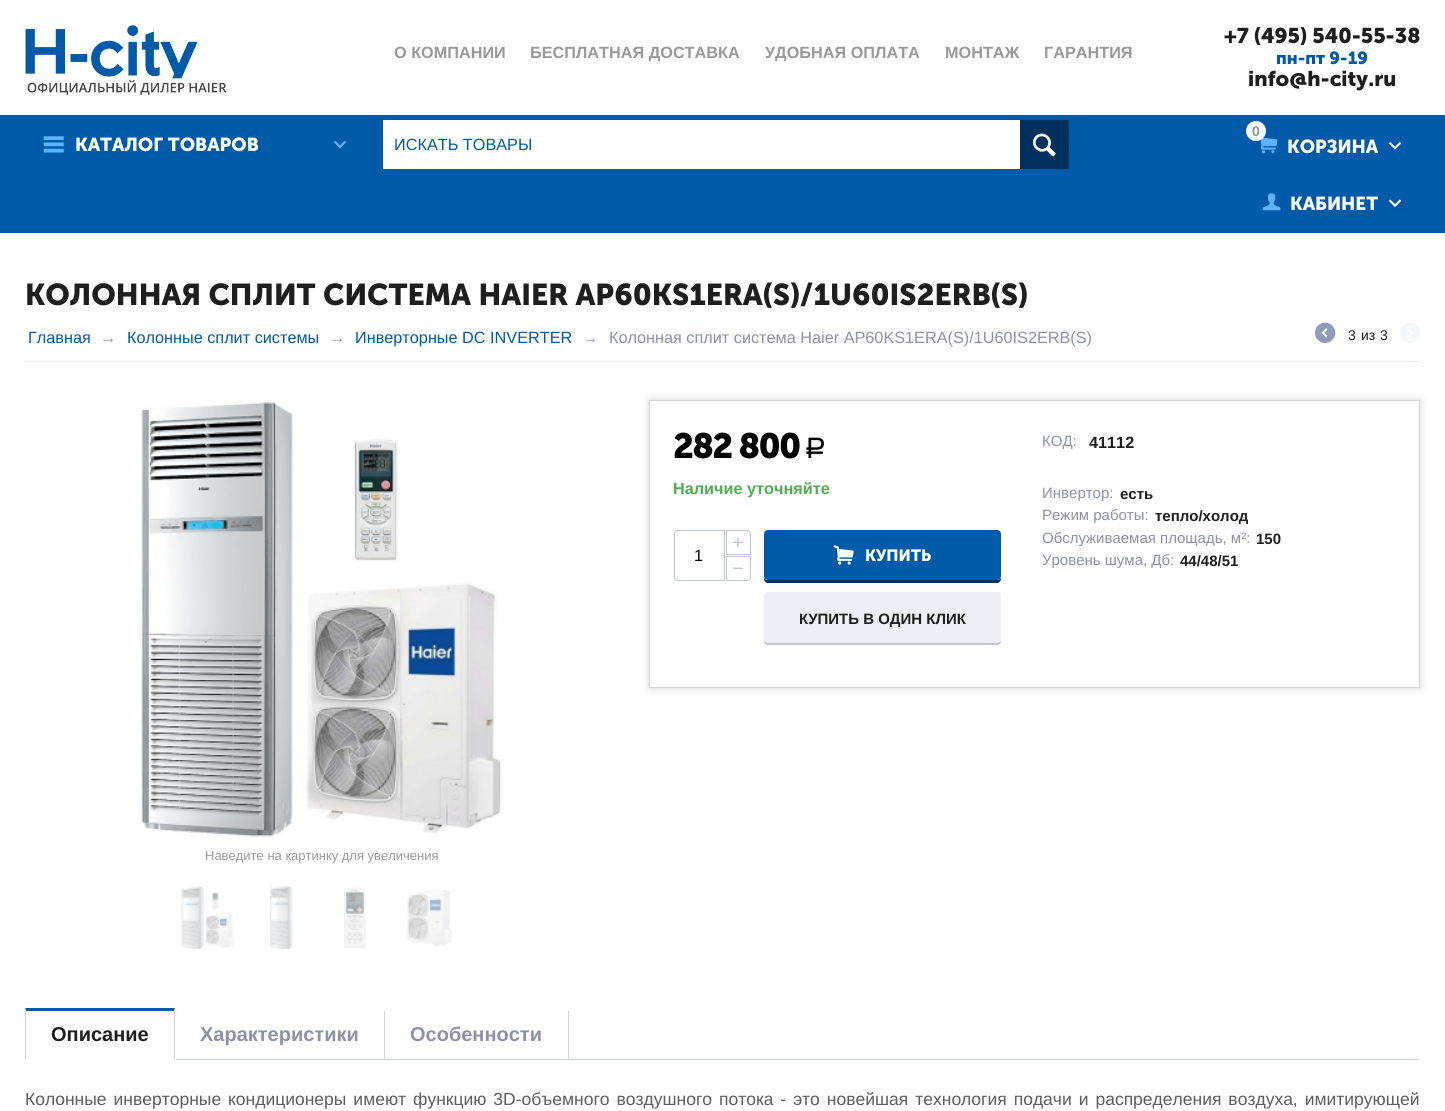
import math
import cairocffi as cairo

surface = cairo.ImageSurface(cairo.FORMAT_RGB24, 1445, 1111)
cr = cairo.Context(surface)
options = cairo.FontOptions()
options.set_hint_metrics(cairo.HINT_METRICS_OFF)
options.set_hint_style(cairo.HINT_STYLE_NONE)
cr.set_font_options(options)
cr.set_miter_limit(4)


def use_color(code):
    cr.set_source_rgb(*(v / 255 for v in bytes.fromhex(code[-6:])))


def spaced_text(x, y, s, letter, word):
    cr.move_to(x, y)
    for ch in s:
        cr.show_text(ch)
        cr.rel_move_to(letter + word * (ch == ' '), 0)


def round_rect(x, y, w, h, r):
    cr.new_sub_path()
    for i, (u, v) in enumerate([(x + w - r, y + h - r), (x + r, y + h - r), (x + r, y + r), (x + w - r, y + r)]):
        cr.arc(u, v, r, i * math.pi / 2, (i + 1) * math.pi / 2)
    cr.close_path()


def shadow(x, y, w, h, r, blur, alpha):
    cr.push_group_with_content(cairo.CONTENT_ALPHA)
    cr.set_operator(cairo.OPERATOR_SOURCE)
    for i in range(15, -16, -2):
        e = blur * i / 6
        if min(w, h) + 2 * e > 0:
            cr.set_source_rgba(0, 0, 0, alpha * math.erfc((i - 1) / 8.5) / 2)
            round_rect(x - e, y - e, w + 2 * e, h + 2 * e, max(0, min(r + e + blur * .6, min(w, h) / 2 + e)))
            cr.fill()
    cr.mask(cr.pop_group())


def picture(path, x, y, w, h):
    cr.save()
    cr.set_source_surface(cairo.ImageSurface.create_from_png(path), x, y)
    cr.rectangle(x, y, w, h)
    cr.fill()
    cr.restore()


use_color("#ffffff")
cr.paint()
picture("img1.png", 25, 25, 202, 70)
cr.select_font_face("Liberation Sans", cairo.FONT_SLANT_NORMAL, cairo.FONT_WEIGHT_BOLD)
cr.set_font_size(16.25)
use_color("#999999")
cr.move_to(394, 58)
cr.show_text("О КОМПАНИИ")
cr.move_to(530, 58)
cr.show_text("БЕСПЛАТНАЯ ДОСТАВКА")
cr.move_to(765, 58)
cr.show_text("УДОБНАЯ ОПЛАТА")
cr.move_to(945, 58)
cr.show_text("МОНТАЖ")
cr.move_to(1044, 58)
cr.show_text("ГАРАНТИЯ")
cr.select_font_face("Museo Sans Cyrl", cairo.FONT_SLANT_NORMAL, cairo.FONT_WEIGHT_BOLD)
cr.set_font_size(21.25)
use_color("#1e1e1e")
cr.move_to(1224, 43)
cr.show_text("+7 (495) 540-55-38")
cr.set_font_size(17.5)
use_color("#005aaa")
cr.move_to(1276, 64)
cr.show_text("пн-пт 9-19")
cr.set_font_size(21.25)
use_color("#1e1e1e")
cr.move_to(1248, 86)
cr.show_text("info@h-city.ru")
use_color("#005aaa")
cr.rectangle(0, 115, 1445, 118)
cr.fill()
picture("img2.png", 43, 136, 21, 17)
cr.set_font_size(18.75)
use_color("#ffffff")
cr.move_to(75, 151)
cr.show_text("КАТАЛОГ ТОВАРОВ")
picture("img3.png", 333, 140, 14, 9)
cr.rectangle(383, 120, 637, 49)
cr.fill()
cr.select_font_face("Liberation Sans")
cr.set_font_size(16.25)
use_color("#005aaa")
cr.move_to(394, 150)
cr.show_text("ИСКАТЬ ТОВАРЫ")
use_color("#00315e")
cr.rectangle(1020, 120, 49, 49)
cr.fill()
picture("img4.png", 1032, 133, 24, 24)
picture("img5.png", 1260, 137, 18, 17)
use_color("#ffffff")
cr.arc(1256, 131, 10, 0, 2 * math.pi)
cr.fill()
cr.select_font_face("Liberation Sans", cairo.FONT_SLANT_NORMAL, cairo.FONT_WEIGHT_BOLD)
cr.set_font_size(14)
use_color("#8e91a7")
cr.move_to(1252, 136)
cr.show_text("0")
cr.select_font_face("Museo Sans Cyrl", cairo.FONT_SLANT_NORMAL, cairo.FONT_WEIGHT_BOLD)
cr.set_font_size(18.75)
use_color("#ffffff")
cr.move_to(1287, 153)
cr.show_text("КОРЗИНА")
picture("img6.png", 1388, 142, 14, 8)
picture("img7.png", 1262, 193, 19, 18)
cr.move_to(1290, 210)
cr.show_text("КАБИНЕТ")
picture("img8.png", 1388, 199, 14, 8)
cr.set_font_size(30)
use_color("#1e1e1e")
cr.move_to(25, 305)
cr.show_text("КОЛОННАЯ СПЛИТ СИСТЕМА HAIER AP60KS1ERA(S)/1U60IS2ERB(S)")
use_color("#edeff4")
cr.rectangle(25, 361, 1395, 1)
cr.fill()
cr.select_font_face("Liberation Sans")
cr.set_font_size(16.25)
use_color("#005aaa")
cr.move_to(28, 343)
cr.show_text("Главная")
use_color("#8e91a7")
cr.move_to(100, 343)
cr.show_text("→")
use_color("#005aaa")
cr.move_to(127, 343)
cr.show_text("Колонные сплит системы")
use_color("#8e91a7")
cr.move_to(329, 343)
cr.show_text("→")
use_color("#005aaa")
cr.move_to(355, 343)
cr.show_text("Инверторные DC INVERTER")
use_color("#8e91a7")
cr.move_to(582, 343)
cr.show_text("→")
cr.move_to(609, 343)
cr.show_text("Колонная сплит система Haier AP60KS1ERA(S)/1U60IS2ERB(S)")
picture("img9.png", 1315, 322, 21, 21)
cr.set_font_size(14)
use_color("#1e1e1e")
cr.move_to(1348, 340)
cr.show_text("3")
cr.move_to(1361, 340)
cr.show_text("из")
cr.move_to(1380, 340)
cr.show_text("3")
picture("img10.png", 1400, 323, 20, 20)
cr.save()
cr.set_fill_rule(cairo.FILL_RULE_EVEN_ODD)
cr.new_path()
cr.move_to(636, 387)
cr.line_to(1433, 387)
cr.line_to(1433, 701)
cr.line_to(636, 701)
cr.close_path()
cr.move_to(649, 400)
cr.line_to(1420, 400)
cr.line_to(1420, 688)
cr.line_to(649, 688)
cr.close_path()
cr.clip()
use_color("#d5d5d5")
shadow(649, 400, 771, 288, 0, 4, 1)
cr.restore()
cr.rectangle(649.5, 400.5, 770, 287)
use_color("#d5d5d5")
cr.set_line_width(1)
cr.stroke()
cr.select_font_face("Museo Sans Cyrl", cairo.FONT_SLANT_NORMAL, cairo.FONT_WEIGHT_BOLD)
cr.set_font_size(35)
use_color("#000000")
spaced_text(673, 458, "282 800", -1.75, 0)
cr.select_font_face("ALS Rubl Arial")
cr.set_font_size(29)
spaced_text(804, 458, "Р", -1.75, 0)
cr.select_font_face("Liberation Sans", cairo.FONT_SLANT_NORMAL, cairo.FONT_WEIGHT_BOLD)
cr.set_font_size(16.25)
use_color("#4caf50")
cr.move_to(673, 494)
cr.show_text("Наличие уточняйте")
cr.new_path()
cr.move_to(726.5, 530.5)
cr.line_to(747, 530.5)
cr.curve_to(749, 530.5, 750.5, 532, 750.5, 534)
cr.line_to(750.5, 554.5)
cr.line_to(726.5, 554.5)
cr.close_path()
use_color("#bec5d7")
cr.stroke()
cr.select_font_face("Liberation Sans")
cr.set_font_size(20)
cr.move_to(732, 549)
cr.show_text("+")
cr.new_path()
cr.move_to(678, 530.5)
cr.line_to(724.5, 530.5)
cr.line_to(724.5, 580.5)
cr.line_to(678, 580.5)
cr.curve_to(676, 580.5, 674.5, 579, 674.5, 577)
cr.line_to(674.5, 534)
cr.curve_to(674.5, 532, 676, 530.5, 678, 530.5)
cr.close_path()
cr.stroke()
cr.set_font_size(16.25)
use_color("#000000")
cr.move_to(694, 561)
cr.show_text("1")
cr.new_path()
cr.move_to(726.5, 556.5)
cr.line_to(750.5, 556.5)
cr.line_to(750.5, 577)
cr.curve_to(750.5, 579, 749, 580.5, 747, 580.5)
cr.line_to(726.5, 580.5)
cr.close_path()
use_color("#bec5d7")
cr.stroke()
cr.set_font_size(20)
cr.move_to(732, 575)
cr.show_text("−")
use_color("#00315e")
cr.new_path()
cr.move_to(764, 578)
cr.line_to(764, 579)
cr.curve_to(764, 581, 766, 583, 768, 583)
cr.line_to(997, 583)
cr.curve_to(999, 583, 1001, 581, 1001, 579)
cr.line_to(1001, 578)
cr.curve_to(1000, 579, 999, 580, 998, 580)
cr.line_to(768, 580)
cr.curve_to(766, 580, 765, 579, 764, 578)
cr.close_path()
cr.fill()
use_color("#005aaa")
round_rect(764, 530, 237, 50, 4)
cr.fill()
picture("img11.png", 833, 545, 21, 20)
cr.select_font_face("Museo Sans Cyrl", cairo.FONT_SLANT_NORMAL, cairo.FONT_WEIGHT_BOLD)
cr.set_font_size(16.25)
use_color("#ffffff")
cr.move_to(865, 561)
cr.show_text("КУПИТЬ")
use_color("#bec5d7")
cr.new_path()
cr.move_to(764, 640)
cr.line_to(764, 641)
cr.curve_to(764, 643, 766, 645, 768, 645)
cr.line_to(997, 645)
cr.curve_to(999, 645, 1001, 643, 1001, 641)
cr.line_to(1001, 640)
cr.curve_to(1000, 642, 999, 642, 998, 642)
cr.line_to(768, 642)
cr.curve_to(766, 642, 765, 642, 764, 640)
cr.close_path()
cr.fill()
use_color("#edeff4")
round_rect(764, 593, 237, 50, 4)
cr.fill()
cr.set_fill_rule(cairo.FILL_RULE_EVEN_ODD)
cr.new_path()
cr.move_to(768, 592)
cr.line_to(998, 592)
cr.curve_to(1000, 592, 1001, 594, 1001, 596)
cr.line_to(1001, 639)
cr.curve_to(1001, 641, 1000, 642, 998, 642)
cr.line_to(768, 642)
cr.curve_to(765, 642, 764, 641, 764, 639)
cr.line_to(764, 596)
cr.curve_to(764, 594, 765, 592, 768, 592)
cr.close_path()
cr.move_to(768, 594)
cr.line_to(998, 594)
cr.curve_to(999, 594, 1000, 595, 1000, 596)
cr.line_to(1000, 639)
cr.curve_to(1000, 641, 999, 642, 998, 642)
cr.line_to(768, 642)
cr.curve_to(766, 642, 765, 641, 765, 639)
cr.line_to(765, 596)
cr.curve_to(765, 595, 766, 594, 768, 594)
cr.close_path()
cr.fill()
cr.select_font_face("Liberation Sans", cairo.FONT_SLANT_NORMAL, cairo.FONT_WEIGHT_BOLD)
cr.set_font_size(15)
use_color("#1e1e1e")
cr.move_to(799, 624)
cr.show_text("КУПИТЬ В ОДИН КЛИК")
cr.select_font_face("Liberation Sans")
use_color("#8e91a7")
cr.move_to(1042, 446)
cr.show_text("КОД:")
cr.select_font_face("Liberation Sans", cairo.FONT_SLANT_NORMAL, cairo.FONT_WEIGHT_BOLD)
cr.set_font_size(16.25)
use_color("#1e1e1e")
cr.move_to(1089, 448)
cr.show_text("41112")
cr.select_font_face("Liberation Sans")
cr.set_font_size(15)
use_color("#8e91a7")
cr.move_to(1042, 498)
cr.show_text("Инвертор:")
cr.select_font_face("Liberation Sans", cairo.FONT_SLANT_NORMAL, cairo.FONT_WEIGHT_BOLD)
use_color("#1e1e1e")
cr.move_to(1120, 499)
cr.show_text("есть")
cr.select_font_face("Liberation Sans")
use_color("#8e91a7")
cr.move_to(1042, 520)
cr.show_text("Режим работы:")
cr.select_font_face("Liberation Sans", cairo.FONT_SLANT_NORMAL, cairo.FONT_WEIGHT_BOLD)
use_color("#1e1e1e")
cr.move_to(1155, 521)
cr.show_text("тепло/холод")
cr.select_font_face("Liberation Sans")
use_color("#8e91a7")
cr.move_to(1042, 543)
cr.show_text("Обслуживаемая площадь, м²:")
cr.select_font_face("Liberation Sans", cairo.FONT_SLANT_NORMAL, cairo.FONT_WEIGHT_BOLD)
use_color("#1e1e1e")
cr.move_to(1256, 544)
cr.show_text("150")
cr.select_font_face("Liberation Sans")
use_color("#8e91a7")
cr.move_to(1042, 565)
cr.show_text("Уровень шума, Дб:")
cr.select_font_face("Liberation Sans", cairo.FONT_SLANT_NORMAL, cairo.FONT_WEIGHT_BOLD)
use_color("#1e1e1e")
cr.move_to(1180, 566)
cr.show_text("44/48/51")
picture("img12.png", 140, 402, 362, 435)
cr.select_font_face("Liberation Sans")
cr.set_font_size(13)
use_color("#999999")
cr.move_to(205, 860)
cr.show_text("Наведите на картинку для увеличения")
picture("img13.png", 181, 886, 53, 63)
picture("img14.png", 270, 886, 23, 63)
picture("img15.png", 344, 887, 22, 62)
picture("img16.png", 406, 890, 46, 57)
use_color("#cdd3e1")
cr.rectangle(175, 1059, 1245, 1)
cr.fill()
use_color("#005aaa")
cr.set_fill_rule(cairo.FILL_RULE_WINDING)
cr.new_path()
cr.move_to(25, 1008)
cr.line_to(175, 1008)
cr.line_to(174, 1011)
cr.line_to(26, 1011)
cr.close_path()
cr.fill()
use_color("#cdd3e1")
cr.new_path()
cr.move_to(175, 1008)
cr.line_to(175, 1060)
cr.line_to(174, 1059)
cr.line_to(174, 1011)
cr.close_path()
cr.fill()
use_color("#ffffff")
cr.rectangle(174, 1059, 1, 1)
cr.fill()
use_color("#cdd3e1")
cr.new_path()
cr.move_to(25, 1060)
cr.line_to(25, 1008)
cr.line_to(26, 1011)
cr.line_to(26, 1059)
cr.close_path()
cr.fill()
cr.select_font_face("Liberation Sans", cairo.FONT_SLANT_NORMAL, cairo.FONT_WEIGHT_BOLD)
cr.set_font_size(20)
use_color("#1e1e1e")
cr.move_to(51, 1041)
cr.show_text("Описание")
use_color("#8e91a7")
cr.move_to(200, 1041)
cr.show_text("Характеристики")
use_color("#cdd3e1")
cr.rectangle(568, 1011, 1, 48)
cr.fill()
cr.rectangle(384, 1011, 1, 48)
cr.fill()
use_color("#8e91a7")
cr.move_to(410, 1041)
cr.show_text("Особенности")
cr.select_font_face("Liberation Sans")
cr.set_font_size(17.5)
use_color("#5e5e5e")
spaced_text(25, 1105, "Колонные инверторные кондиционеры имеют функцию 3D-объемного воздушного потока - это новейшая технология подачи и распределения воздуха, имитирующей", 0, 2.1)
surface.write_to_png("result.png")
